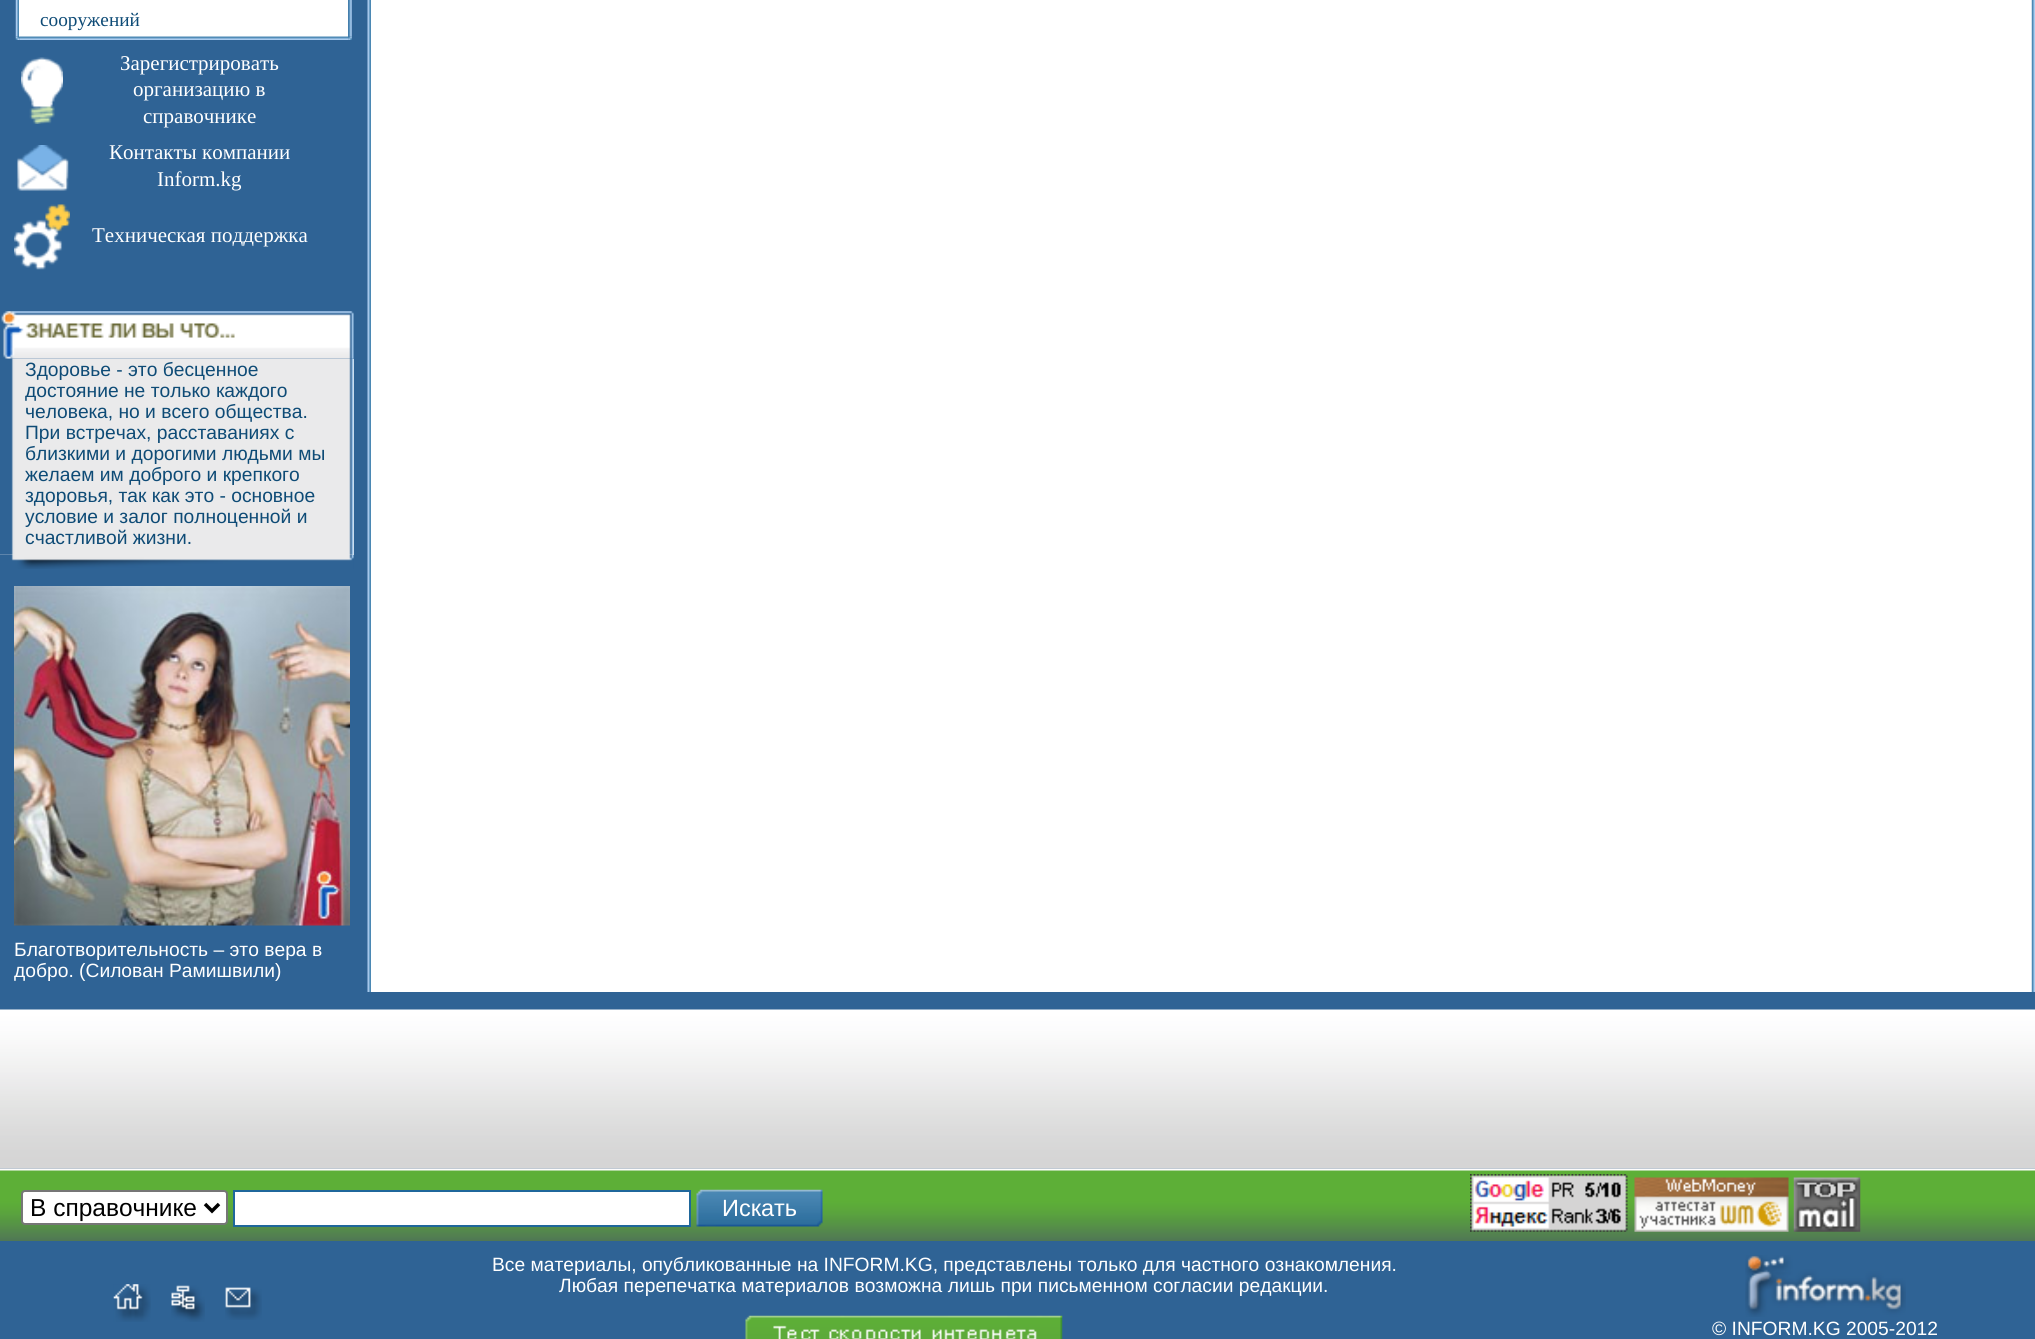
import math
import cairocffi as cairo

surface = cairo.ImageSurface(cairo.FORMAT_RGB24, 2035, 1339)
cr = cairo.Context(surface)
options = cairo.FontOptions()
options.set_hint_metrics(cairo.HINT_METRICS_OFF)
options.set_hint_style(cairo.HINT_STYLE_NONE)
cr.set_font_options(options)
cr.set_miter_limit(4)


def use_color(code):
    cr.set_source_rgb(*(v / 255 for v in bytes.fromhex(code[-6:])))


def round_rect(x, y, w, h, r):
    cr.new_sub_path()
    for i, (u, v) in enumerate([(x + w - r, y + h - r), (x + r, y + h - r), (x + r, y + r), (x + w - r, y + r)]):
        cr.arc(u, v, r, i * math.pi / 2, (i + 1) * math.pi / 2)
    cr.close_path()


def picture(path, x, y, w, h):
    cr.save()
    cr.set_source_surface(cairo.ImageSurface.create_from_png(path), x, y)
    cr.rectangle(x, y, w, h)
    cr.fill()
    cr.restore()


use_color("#2f6395")
cr.paint()
picture("img1.png", 15, 0, 4, 37)
use_color("#ffffff")
cr.rectangle(19, 0, 329, 37)
cr.fill()
cr.select_font_face("Liberation Serif")
cr.set_font_size(19.25)
use_color("#0e4b76")
cr.move_to(40, 26)
cr.show_text("сооружений")
picture("img2.png", 348, 0, 4, 37)
picture("img4.png", 19, 36, 330, 4)
picture("img3.png", 15, 36, 5, 4)
picture("img5.png", 348, 36, 4, 4)
picture("img6.png", 21, 57, 42, 67)
cr.set_font_size(21)
use_color("#ffffff")
cr.move_to(120, 70)
cr.show_text("Зарегистрировать")
cr.move_to(133, 96)
cr.show_text("организацию в")
cr.move_to(143, 123)
cr.show_text("справочнике")
picture("img7.png", 17, 145, 52, 46)
cr.move_to(109, 159)
cr.show_text("Контакты компании")
cr.move_to(157, 186)
cr.show_text("Inform.kg")
picture("img8.png", 14, 204, 56, 66)
cr.move_to(92, 242)
cr.show_text("Техническая поддержка")
use_color("#eaeaeb")
cr.rectangle(0, 359, 354, 196)
cr.fill()
picture("img10.png", 0, 358, 354, 197)
picture("img9.png", 1, 311, 353, 48)
cr.select_font_face("Liberation Sans")
cr.set_font_size(19.25)
use_color("#0e4b76")
cr.move_to(25, 376)
cr.show_text("Здоровье - это бесценное")
cr.move_to(25, 397)
cr.show_text("достояние не только каждого")
cr.move_to(25, 418)
cr.show_text("человека, но и всего общества.")
cr.move_to(25, 439)
cr.show_text("При встречах, расставаниях с")
cr.move_to(25, 460)
cr.show_text("близкими и дорогими людьми мы")
cr.move_to(25, 481)
cr.show_text("желаем им доброго и крепкого")
cr.move_to(25, 502)
cr.show_text("здоровья, так как это - основное")
cr.move_to(25, 523)
cr.show_text("условие и залог полноценной и")
cr.move_to(25, 544)
cr.show_text("счастливой жизни.")
picture("img11.png", 0, 554, 354, 15)
picture("img12.png", 14, 586, 336, 340)
use_color("#ffffff")
cr.move_to(14, 956)
cr.show_text("Благотворительность – это вера в")
cr.move_to(14, 977)
cr.show_text("добро. (Силован Рамишвили)")
picture("img13.png", 367, 0, 4, 992)
cr.rectangle(371, 0, 1661, 992)
cr.fill()
picture("img14.png", 2031, 0, 4, 992)
picture("img15.png", 0, 1009, 2035, 160)
picture("img16.png", 0, 1168, 2035, 73)
round_rect(22, 1191, 205, 33, 3)
cr.fill_preserve()
use_color("#767676")
cr.stroke()
cr.new_path()
cr.move_to(205, 1204)
cr.line_to(212, 1211)
cr.line_to(219, 1204)
use_color("#000000")
cr.set_line_width(3.5)
cr.stroke()
cr.set_font_size(24.5)
cr.move_to(30, 1216)
cr.show_text("В справочнике")
use_color("#ffffff")
cr.rectangle(234, 1191, 456, 35)
cr.fill_preserve()
use_color("#1f679b")
cr.set_line_width(2)
cr.stroke()
picture("img17.png", 696, 1189, 127, 38)
cr.set_font_size(23.5)
use_color("#ffffff")
cr.move_to(722, 1216)
cr.show_text("Искать")
picture("img18.png", 1470, 1174, 158, 58)
picture("img19.png", 1634, 1177, 155, 55)
picture("img20.png", 1793, 1177, 68, 55)
cr.set_font_size(19.25)
cr.move_to(492, 1271)
cr.show_text("Все материалы, опубликованные на INFORM.KG, представлены только для частного ознакомления.")
cr.move_to(559, 1292)
cr.show_text("Любая перепечатка материалов возможна лишь при письменном согласии редакции.")
picture("img21.png", 745, 1315, 318, 24)
picture("img22.png", 113, 1284, 38, 38)
picture("img23.png", 171, 1285, 34, 37)
picture("img24.png", 225, 1287, 37, 33)
picture("img25.png", 1745, 1255, 161, 62)
cr.move_to(1712, 1335)
cr.show_text("© INFORM.KG 2005-2012")
surface.write_to_png("result.png")
